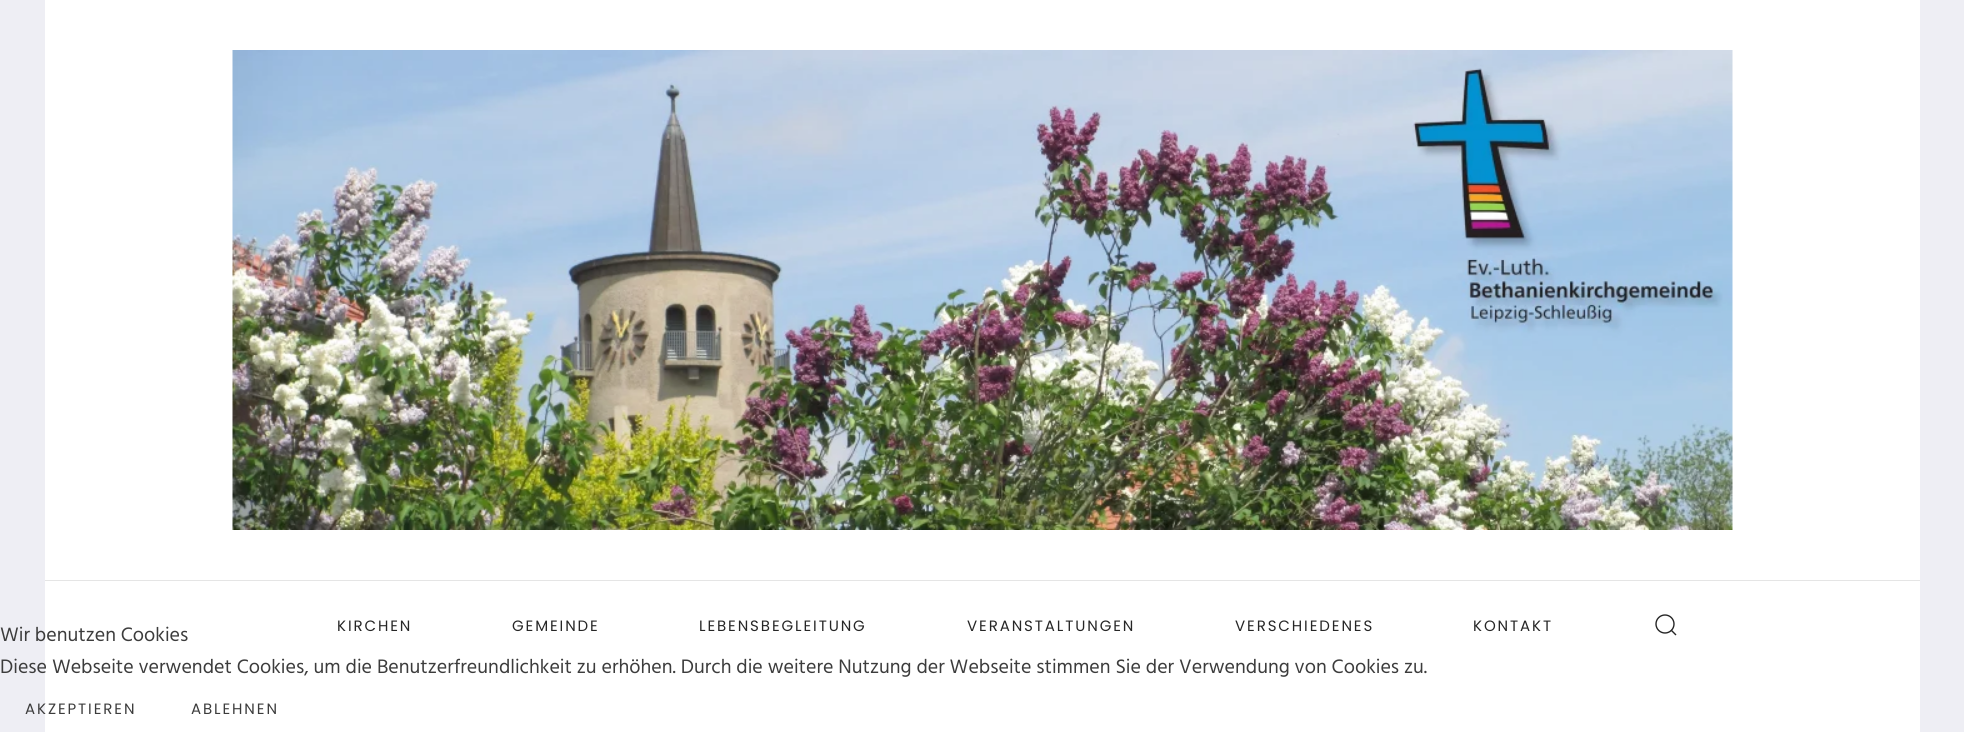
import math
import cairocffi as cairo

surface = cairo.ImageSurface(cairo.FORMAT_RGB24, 1964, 732)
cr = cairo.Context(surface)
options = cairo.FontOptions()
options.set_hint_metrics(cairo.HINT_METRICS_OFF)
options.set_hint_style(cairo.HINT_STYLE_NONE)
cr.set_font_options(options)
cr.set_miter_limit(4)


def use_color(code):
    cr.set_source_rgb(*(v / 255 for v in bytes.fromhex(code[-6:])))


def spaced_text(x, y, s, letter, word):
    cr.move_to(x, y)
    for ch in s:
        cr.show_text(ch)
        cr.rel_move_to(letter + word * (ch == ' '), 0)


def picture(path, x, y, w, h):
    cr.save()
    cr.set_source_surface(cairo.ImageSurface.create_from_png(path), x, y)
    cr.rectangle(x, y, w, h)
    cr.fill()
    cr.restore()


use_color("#eeeef4")
cr.paint()
use_color("#ffffff")
cr.rectangle(45, 0, 1875, 732)
cr.fill()
use_color("#e5e5e5")
cr.rectangle(45, 580, 1875, 1)
cr.fill()
picture("img1.png", 232, 50, 1501, 480)
cr.select_font_face("Poppins")
cr.set_font_size(15)
use_color("#262626")
spaced_text(337, 631, "KIRCHEN", 1.9, 0)
spaced_text(512, 631, "GEMEINDE", 1.9, 0)
spaced_text(699, 631, "LEBENSBEGLEITUNG", 1.9, 0)
spaced_text(967, 631, "VERANSTALTUNGEN", 1.9, 0)
spaced_text(1235, 631, "VERSCHIEDENES", 1.9, 0)
spaced_text(1473, 631, "KONTAKT", 1.9, 0)
cr.new_path()
cr.arc(1665, 624, 9, 0, 2 * math.pi)
cr.set_line_width(1.4)
cr.stroke()
cr.new_path()
cr.move_to(1671, 630)
cr.line_to(1676, 635)
cr.close_path()
cr.stroke()
cr.select_font_face("Hind")
cr.set_font_size(20)
use_color("#3c3c3c")
cr.move_to(0, 641)
cr.show_text("Wir benutzen Cookies")
cr.move_to(0, 673)
cr.show_text("Diese Webseite verwendet Cookies, um die Benutzerfreundlichkeit zu erhöhen. Durch die weitere Nutzung der Webseite stimmen Sie der Verwendung von Cookies zu.")
cr.select_font_face("Poppins")
cr.set_font_size(15)
spaced_text(25, 714, "AKZEPTIEREN", 1.9, 0)
spaced_text(191, 714, "ABLEHNEN", 1.9, 0)
surface.write_to_png("result.png")
